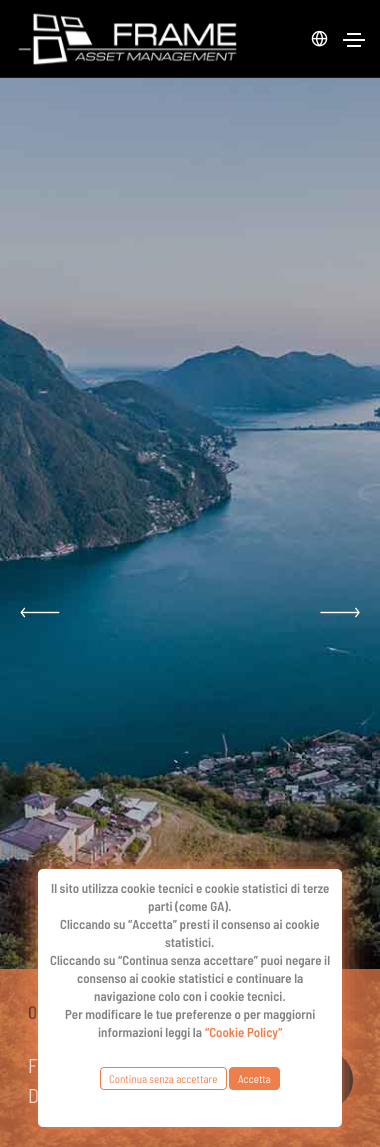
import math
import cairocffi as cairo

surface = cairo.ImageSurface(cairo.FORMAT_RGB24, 380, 1147)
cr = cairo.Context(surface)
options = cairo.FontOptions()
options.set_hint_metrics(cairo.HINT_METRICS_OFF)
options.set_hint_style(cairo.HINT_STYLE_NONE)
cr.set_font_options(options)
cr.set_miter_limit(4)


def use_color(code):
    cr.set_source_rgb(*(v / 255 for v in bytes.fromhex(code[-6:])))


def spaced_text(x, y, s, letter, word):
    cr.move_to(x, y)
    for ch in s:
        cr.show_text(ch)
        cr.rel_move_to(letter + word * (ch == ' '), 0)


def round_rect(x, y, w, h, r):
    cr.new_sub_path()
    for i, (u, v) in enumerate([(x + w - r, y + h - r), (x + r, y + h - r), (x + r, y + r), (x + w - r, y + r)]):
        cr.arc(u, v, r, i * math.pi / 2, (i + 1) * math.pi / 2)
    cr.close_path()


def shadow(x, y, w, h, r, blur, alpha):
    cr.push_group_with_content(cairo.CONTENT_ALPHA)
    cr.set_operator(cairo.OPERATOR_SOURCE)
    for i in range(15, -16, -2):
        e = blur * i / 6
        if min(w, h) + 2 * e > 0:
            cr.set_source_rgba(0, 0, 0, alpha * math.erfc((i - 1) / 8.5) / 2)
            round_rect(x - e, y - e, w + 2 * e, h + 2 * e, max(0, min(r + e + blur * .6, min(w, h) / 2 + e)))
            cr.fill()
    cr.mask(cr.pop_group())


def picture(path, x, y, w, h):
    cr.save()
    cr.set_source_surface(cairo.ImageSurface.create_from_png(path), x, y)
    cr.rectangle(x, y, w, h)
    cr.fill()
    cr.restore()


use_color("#ffffff")
cr.paint()
use_color("#000000")
cr.rectangle(0, 0, 380, 77)
cr.fill()
use_color("#1a1a1a")
cr.rectangle(0, 77, 380, 1)
cr.fill()
picture("img1.png", 18, 13, 219, 52)
picture("img2.png", 311, 30, 17, 17)
use_color("#ffffff")
cr.rectangle(347, 33, 14, 2)
cr.fill()
cr.rectangle(343, 39, 22, 2)
cr.fill()
cr.rectangle(347, 45, 14, 2)
cr.fill()
picture("img5.png", 0, 78, 380, 1069)
picture("img3.png", 20, 607, 40, 11)
picture("img4.png", 320, 607, 40, 11)
cr.set_source_rgba(0.937, 0.494, 0.298, 0.7)
cr.rectangle(0, 969, 380, 178)
cr.fill()
cr.select_font_face("Barlow Semi Condensed Medium")
cr.set_font_size(18)
use_color("#232323")
cr.move_to(28, 1019)
cr.show_text("0")
cr.select_font_face("Barlow Semi Condensed")
cr.set_font_size(20)
use_color("#ffffff")
spaced_text(28, 1073, "F", -2, 0)
spaced_text(28, 1103, "D", -2, 0)
use_color("#232323")
cr.new_path()
cr.arc(323, 1080, 30, 0, 2 * math.pi)
cr.fill()
use_color("#ef7e4c")
shadow(38, 869, 304, 258, 5, 15, 1)
use_color("#ffffff")
round_rect(38, 869, 304, 258, 5)
cr.fill()
cr.select_font_face("Barlow Semi Condensed SemiBold")
cr.set_font_size(13)
use_color("#828282")
cr.move_to(51, 893)
cr.show_text("Il sito utilizza cookie tecnici e cookie statistici di terze")
cr.move_to(148, 911)
cr.show_text("parti (come GA).")
cr.move_to(60, 929)
cr.show_text("Cliccando su “Accetta” presti il consenso ai cookie")
cr.move_to(165, 947)
cr.show_text("statistici.")
cr.move_to(50, 965)
cr.show_text("Cliccando su “Continua senza accettare” puoi negare il")
cr.move_to(77, 983)
cr.show_text("consenso ai cookie statistici e continuare la")
cr.move_to(94, 1001)
cr.show_text("navigazione colo con i cookie tecnici.")
cr.move_to(65, 1019)
cr.show_text("Per modificare le tue preferenze o per maggiorni")
cr.move_to(98, 1037)
cr.show_text("informazioni leggi la")
use_color("#ef7e4c")
cr.move_to(205, 1037)
cr.show_text("“Cookie Policy”")
round_rect(100.5, 1067.5, 126, 22, 3.5)
cr.set_line_width(1)
cr.stroke()
cr.select_font_face("Barlow Semi Condensed")
cr.set_font_size(11)
cr.move_to(109, 1083)
cr.show_text("Continua senza accettare")
round_rect(229.5, 1067.5, 50, 22, 3.5)
cr.fill_preserve()
cr.stroke()
use_color("#ffffff")
cr.move_to(238, 1083)
cr.show_text("Accetta")
surface.write_to_png("result.png")
